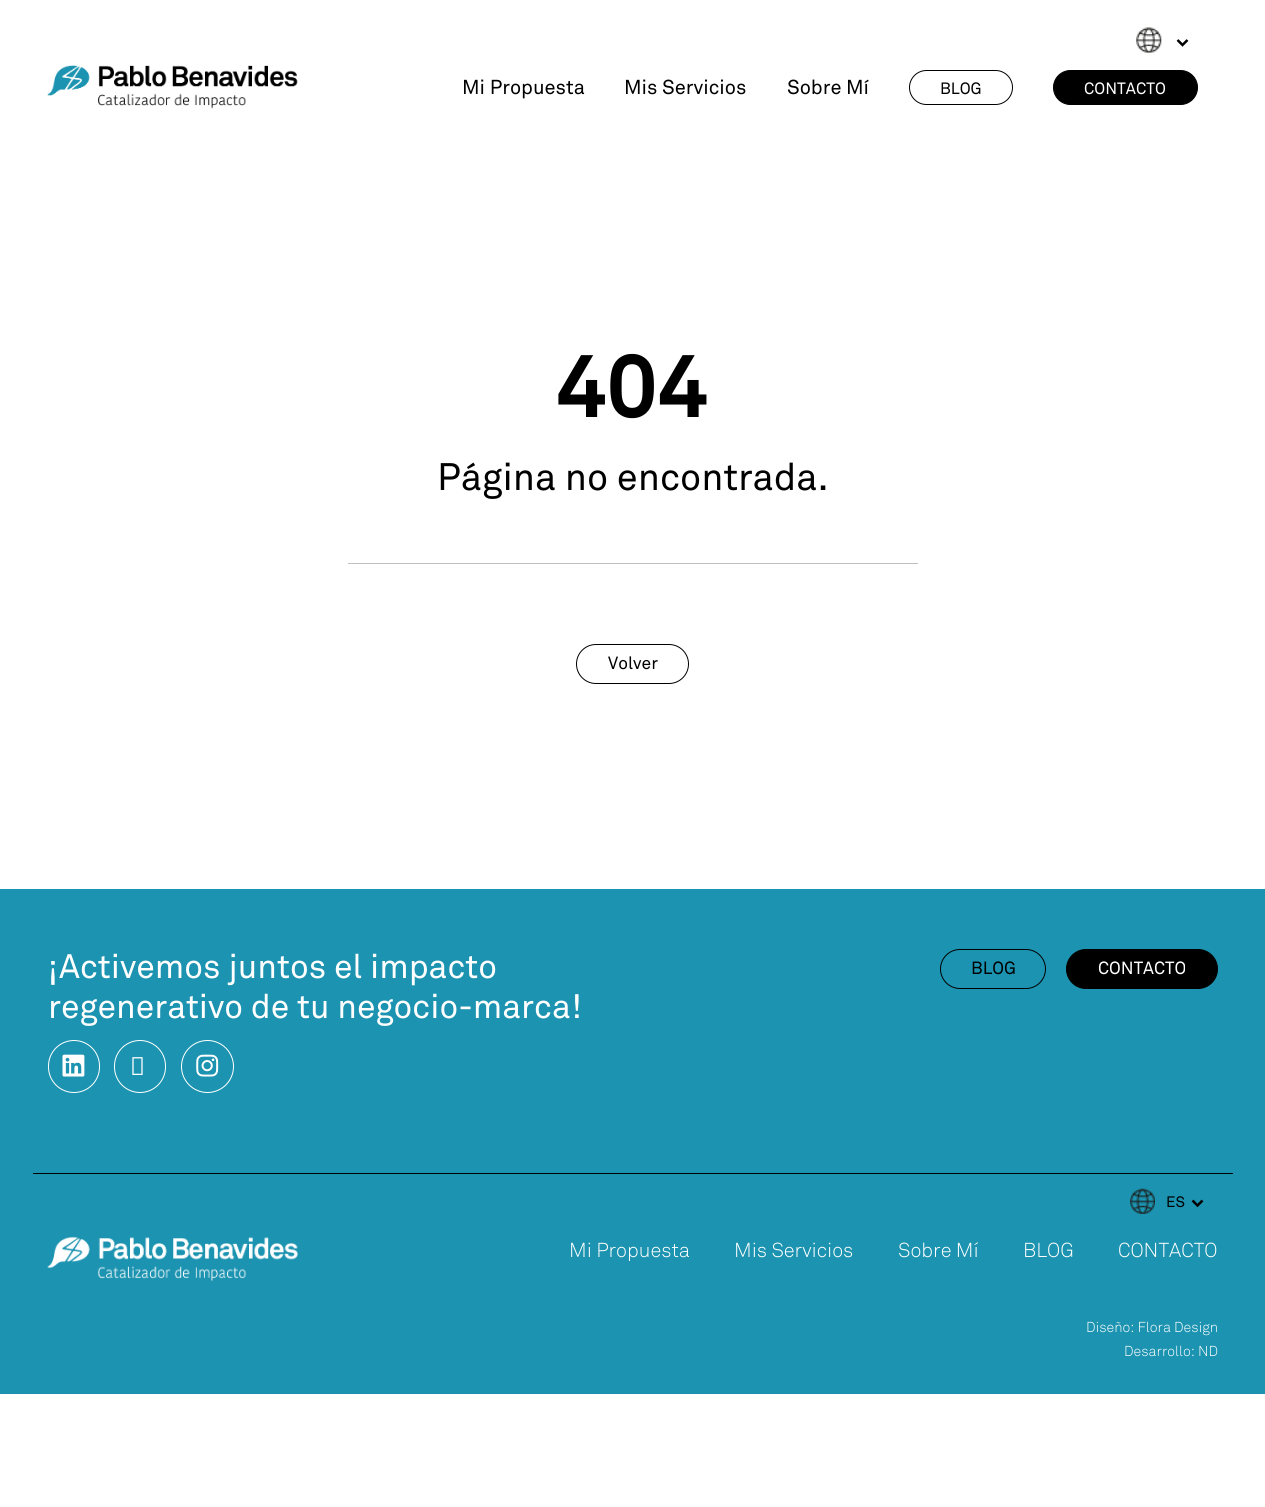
import math
import cairo

surface = cairo.ImageSurface(cairo.FORMAT_RGB24, 1265, 1507)
ctx = cairo.Context(surface)
options = cairo.FontOptions()
options.set_hint_metrics(cairo.HINT_METRICS_OFF)
options.set_hint_style(cairo.HINT_STYLE_NONE)
ctx.set_font_options(options)
ctx.set_miter_limit(4)


def round_rect(x, y, w, h, r):
    ctx.new_sub_path()
    for i, (u, v) in enumerate([(x + w - r, y + h - r), (x + r, y + h - r), (x + r, y + r), (x + w - r, y + r)]):
        ctx.arc(u, v, r, i * math.pi / 2, (i + 1) * math.pi / 2)
    ctx.close_path()


def picture(path, x, y, w, h):
    ctx.save()
    ctx.set_source_surface(cairo.ImageSurface.create_from_png(path), x, y)
    ctx.rectangle(x, y, w, h)
    ctx.fill()
    ctx.restore()


ctx.set_source_rgb(1, 1, 1)
ctx.paint()
picture("img1.png", 47, 65, 251, 44)
picture("img2.png", 1136, 27, 26, 26)
ctx.new_path()
ctx.move_to(1177.5, 40)
ctx.line_to(1182.5, 45)
ctx.line_to(1187.5, 40)
ctx.set_source_rgb(0, 0, 0)
ctx.set_line_width(2.5)
ctx.stroke()
ctx.select_font_face("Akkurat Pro")
ctx.set_font_size(20)
ctx.move_to(462, 94)
ctx.show_text("Mi Propuesta")
ctx.move_to(624, 94)
ctx.show_text("Mis Servicios")
ctx.move_to(787, 94)
ctx.show_text("Sobre Mí")
round_rect(909.5, 70.5, 103, 34, 17)
ctx.set_line_width(1)
ctx.stroke()
ctx.set_font_size(16.25)
ctx.move_to(940, 94)
ctx.show_text("BLOG")
round_rect(1053.5, 70.5, 144, 34, 17)
ctx.fill_preserve()
ctx.stroke()
ctx.set_source_rgb(1, 1, 1)
ctx.move_to(1084, 94)
ctx.show_text("CONTACTO")
ctx.select_font_face("Akkurat Pro", cairo.FONT_SLANT_NORMAL, cairo.FONT_WEIGHT_BOLD)
ctx.set_font_size(89)
ctx.set_source_rgb(0, 0, 0)
ctx.move_to(556, 417)
ctx.show_text("404")
ctx.select_font_face("Akkurat Pro")
ctx.set_font_size(37.9)
ctx.move_to(437, 490)
ctx.show_text("Página no encontrada.")
ctx.set_source_rgb(0.749, 0.749, 0.749)
ctx.rectangle(348, 563, 570, 1)
ctx.fill()
round_rect(576.5, 644.5, 112, 39, 19.5)
ctx.set_source_rgb(0, 0, 0)
ctx.stroke()
ctx.set_font_size(17.5)
ctx.move_to(608, 669)
ctx.show_text("Volver")
ctx.set_source_rgb(0.11, 0.576, 0.69)
ctx.rectangle(0, 889, 1265, 505)
ctx.fill()
ctx.set_font_size(33.6)
ctx.set_source_rgb(1, 1, 1)
ctx.move_to(48, 978)
ctx.show_text("¡Activemos juntos el impacto")
ctx.move_to(48, 1018)
ctx.show_text("regenerativo de tu negocio-marca!")
round_rect(48.5, 1040.5, 51, 52, 25.5)
ctx.stroke()
picture("img3.png", 62, 1054, 23, 23)
round_rect(114.5, 1040.5, 51, 52, 25.5)
ctx.stroke()
picture("img4.png", 132, 1057, 11, 18)
ctx.arc(207.5, 1066.5, 26, 0, 2 * math.pi)
ctx.stroke()
picture("img5.png", 196, 1054, 23, 23)
round_rect(940.5, 949.5, 105, 39, 19.5)
ctx.set_source_rgb(0, 0, 0)
ctx.stroke()
ctx.set_font_size(17.5)
ctx.move_to(971, 974)
ctx.show_text("BLOG")
round_rect(1066.5, 949.5, 151, 39, 19.5)
ctx.fill_preserve()
ctx.stroke()
ctx.set_source_rgb(1, 1, 1)
ctx.move_to(1098, 974)
ctx.show_text("CONTACTO")
ctx.set_source_rgb(0, 0, 0)
ctx.rectangle(33, 1173, 1200, 1)
ctx.fill()
picture("img6.png", 47, 1236, 251, 46)
picture("img7.png", 1130, 1188, 25, 26)
ctx.new_path()
ctx.move_to(1192.5, 1200.5)
ctx.line_to(1197.5, 1205.5)
ctx.line_to(1202.5, 1200.5)
ctx.set_line_width(2.5)
ctx.stroke()
ctx.set_font_size(15)
ctx.move_to(1166, 1207)
ctx.show_text("ES")
ctx.select_font_face("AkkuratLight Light")
ctx.set_font_size(20)
ctx.set_source_rgb(1, 1, 1)
ctx.move_to(569, 1257)
ctx.show_text("Mi Propuesta")
ctx.move_to(734, 1257)
ctx.show_text("Mis Servicios")
ctx.move_to(898, 1257)
ctx.show_text("Sobre Mí")
ctx.move_to(1023, 1257)
ctx.show_text("BLOG")
ctx.move_to(1118, 1257)
ctx.show_text("CONTACTO")
ctx.set_font_size(14.25)
ctx.move_to(1086, 1332)
ctx.show_text("Diseño: Flora Design")
ctx.move_to(1124, 1356)
ctx.show_text("Desarrollo: ND")
surface.write_to_png("page.png")
